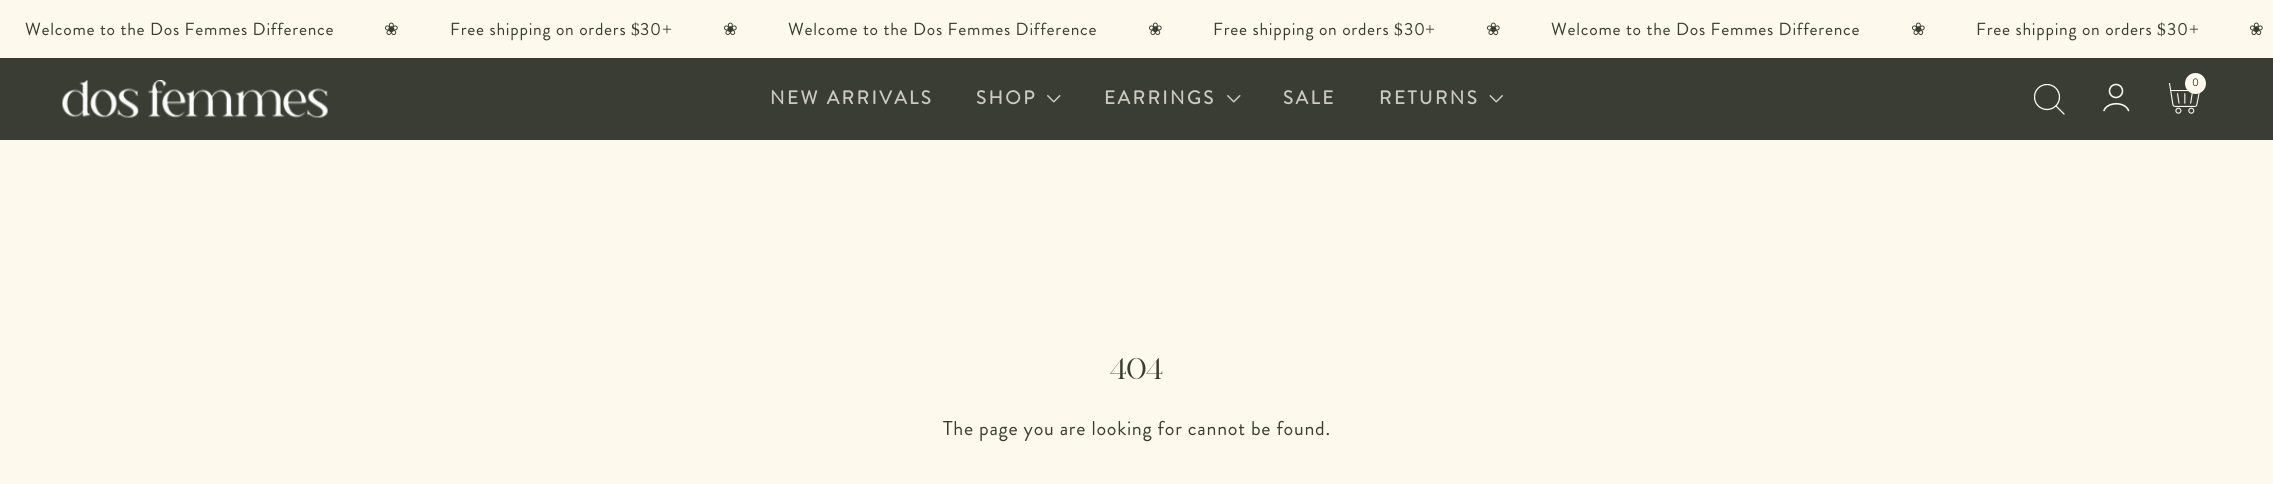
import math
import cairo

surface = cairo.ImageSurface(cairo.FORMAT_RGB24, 2273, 484)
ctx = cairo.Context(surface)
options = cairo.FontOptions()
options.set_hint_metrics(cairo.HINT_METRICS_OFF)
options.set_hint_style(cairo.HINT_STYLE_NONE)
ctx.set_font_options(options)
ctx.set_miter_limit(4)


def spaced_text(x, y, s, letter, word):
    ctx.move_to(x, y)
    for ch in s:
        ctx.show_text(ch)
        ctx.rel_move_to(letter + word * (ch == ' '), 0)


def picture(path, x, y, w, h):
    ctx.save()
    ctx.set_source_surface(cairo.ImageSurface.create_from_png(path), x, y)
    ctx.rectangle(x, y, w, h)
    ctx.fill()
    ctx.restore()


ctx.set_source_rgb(0.992, 0.973, 0.925)
ctx.paint()
ctx.select_font_face("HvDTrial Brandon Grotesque")
ctx.set_font_size(17.5)
ctx.set_source_rgb(0.224, 0.239, 0.2)
spaced_text(25, 35, "Welcome to the Dos Femmes Difference", 0.75, 0)
ctx.select_font_face("DejaVu Sans")
spaced_text(384, 35, "❀", 0.75, 0)
ctx.select_font_face("HvDTrial Brandon Grotesque")
spaced_text(450, 35, "Free shipping on orders", 0.75, 0)
ctx.select_font_face("Liberation Serif")
spaced_text(631, 35, "$", 0.75, 0)
ctx.select_font_face("HvDTrial Brandon Grotesque")
spaced_text(640, 35, "30", 0.75, 0)
ctx.select_font_face("Liberation Serif")
spaced_text(662, 35, "+", 0.75, 0)
ctx.select_font_face("DejaVu Sans")
spaced_text(723, 35, "❀", 0.75, 0)
ctx.select_font_face("HvDTrial Brandon Grotesque")
spaced_text(788, 35, "Welcome to the Dos Femmes Difference", 0.75, 0)
ctx.select_font_face("DejaVu Sans")
spaced_text(1148, 35, "❀", 0.75, 0)
ctx.select_font_face("HvDTrial Brandon Grotesque")
spaced_text(1213, 35, "Free shipping on orders", 0.75, 0)
ctx.select_font_face("Liberation Serif")
spaced_text(1394, 35, "$", 0.75, 0)
ctx.select_font_face("HvDTrial Brandon Grotesque")
spaced_text(1404, 35, "30", 0.75, 0)
ctx.select_font_face("Liberation Serif")
spaced_text(1425, 35, "+", 0.75, 0)
ctx.select_font_face("DejaVu Sans")
spaced_text(1486, 35, "❀", 0.75, 0)
ctx.select_font_face("HvDTrial Brandon Grotesque")
spaced_text(1551, 35, "Welcome to the Dos Femmes Difference", 0.75, 0)
ctx.select_font_face("DejaVu Sans")
spaced_text(1911, 35, "❀", 0.75, 0)
ctx.select_font_face("HvDTrial Brandon Grotesque")
spaced_text(1976, 35, "Free shipping on orders", 0.75, 0)
ctx.select_font_face("Liberation Serif")
spaced_text(2157, 35, "$", 0.75, 0)
ctx.select_font_face("HvDTrial Brandon Grotesque")
spaced_text(2167, 35, "30", 0.75, 0)
ctx.select_font_face("Liberation Serif")
spaced_text(2189, 35, "+", 0.75, 0)
ctx.select_font_face("DejaVu Sans")
spaced_text(2249, 35, "❀", 0.75, 0)
ctx.rectangle(0, 58, 2273, 82)
ctx.fill()
picture("img1.png", 62, 80, 266, 38)
ctx.select_font_face("HvDTrial Brandon Grotesque", cairo.FONT_SLANT_NORMAL, cairo.FONT_WEIGHT_BOLD)
ctx.set_font_size(18.75)
ctx.set_source_rgb(0.8, 0.788, 0.745)
spaced_text(770, 104, "NEW ARRIVALS", 2.5, 0)
spaced_text(976, 104, "SHOP", 2.5, 0)
picture("img2.png", 1047, 95, 14, 8)
spaced_text(1104, 104, "EARRINGS", 2.5, 0)
picture("img2.png", 1227, 95, 14, 8)
spaced_text(1283, 104, "SALE", 2.5, 0)
spaced_text(1379, 104, "RETURNS", 2.5, 0)
picture("img3.png", 1489, 95, 14, 8)
ctx.save()
ctx.rectangle(2034, 84, 31, 31)
ctx.clip()
ctx.arc(2047, 97, 12.5, 0, 2 * math.pi)
ctx.set_source_rgb(0.992, 0.973, 0.925)
ctx.set_line_width(1.3)
ctx.stroke()
ctx.restore()
ctx.new_path()
ctx.move_to(2056, 106)
ctx.line_to(2064, 114)
ctx.set_source_rgb(0.992, 0.973, 0.925)
ctx.set_line_width(1.3)
ctx.set_line_cap(cairo.LINE_CAP_ROUND)
ctx.stroke()
ctx.new_path()
ctx.move_to(2128.5, 110.5)
ctx.curve_to(2125, 101.5, 2107.5, 101.5, 2104, 110.5)
ctx.set_line_width(1.6)
ctx.stroke()
ctx.arc(2116, 91, 6.5, 0, 2 * math.pi)
ctx.set_line_cap(cairo.LINE_CAP_BUTT)
ctx.stroke()
picture("img4.png", 2169, 83, 31, 31)
ctx.arc(2195.5, 83.5, 10.5, 0, 2 * math.pi)
ctx.fill()
ctx.select_font_face("HvDTrial Brandon Grotesque")
ctx.set_font_size(11)
ctx.set_source_rgb(0.224, 0.239, 0.2)
spaced_text(2192, 86, "0", 0.75, 0)
ctx.select_font_face("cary")
ctx.set_font_size(30)
spaced_text(1110, 379, "404", 0.75, 0)
ctx.select_font_face("HvDTrial Brandon Grotesque")
ctx.set_font_size(20)
spaced_text(943, 435, "The page you are looking for cannot be found.", 0.75, 0)
surface.write_to_png("page.png")
